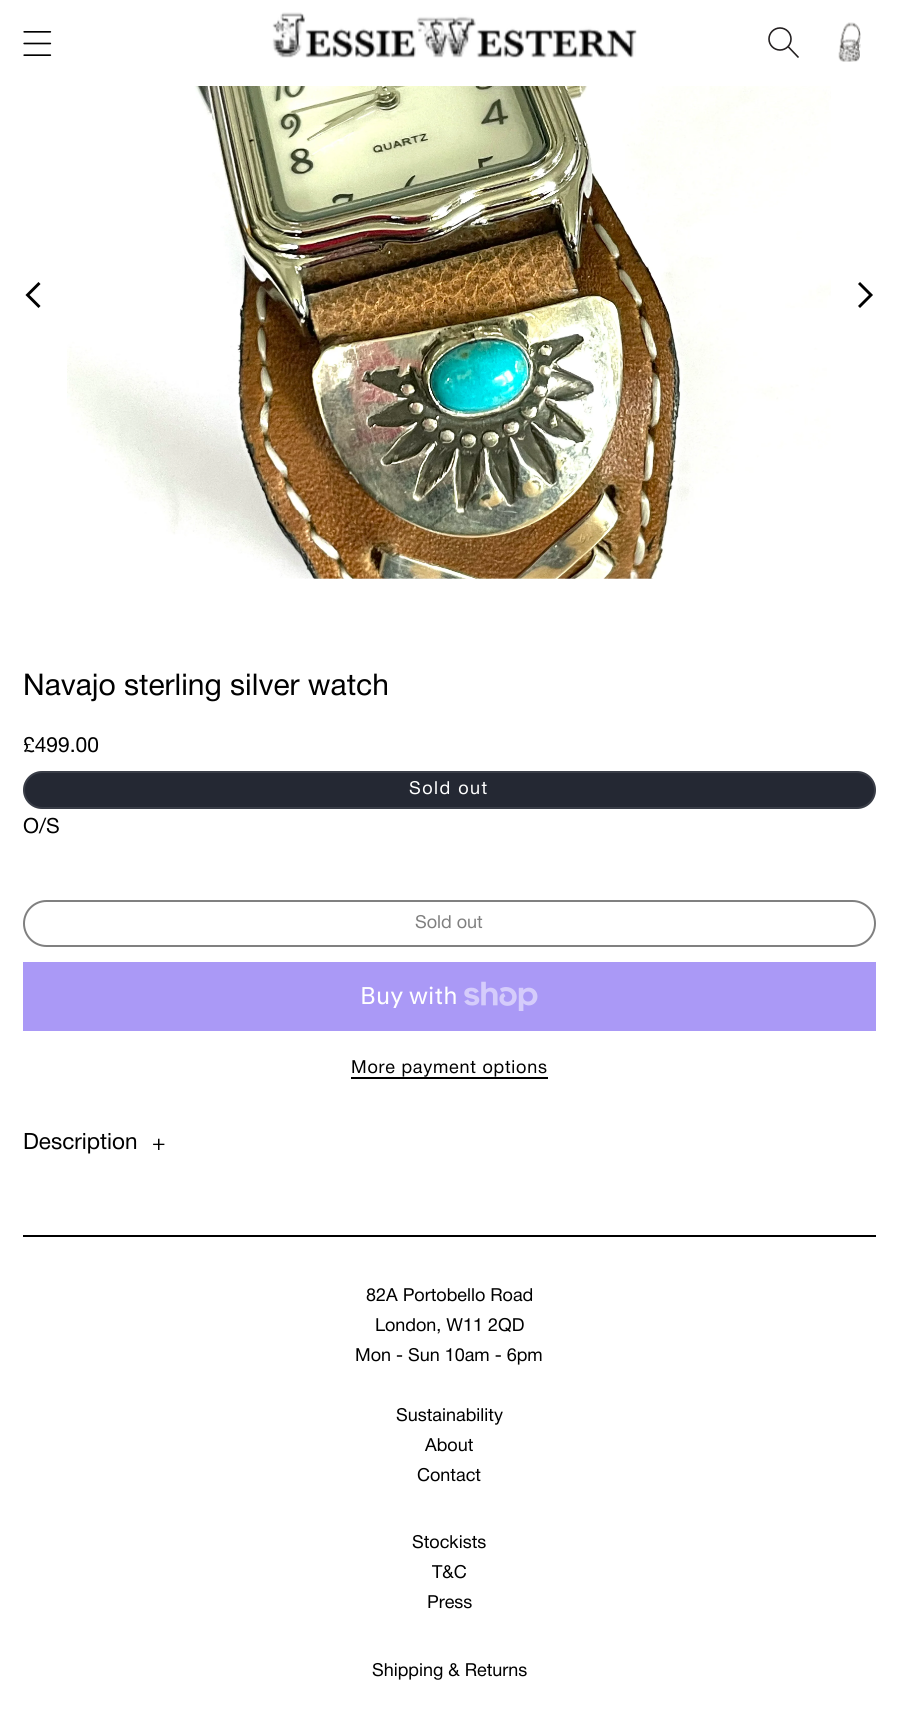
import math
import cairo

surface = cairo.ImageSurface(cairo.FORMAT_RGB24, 898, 1721)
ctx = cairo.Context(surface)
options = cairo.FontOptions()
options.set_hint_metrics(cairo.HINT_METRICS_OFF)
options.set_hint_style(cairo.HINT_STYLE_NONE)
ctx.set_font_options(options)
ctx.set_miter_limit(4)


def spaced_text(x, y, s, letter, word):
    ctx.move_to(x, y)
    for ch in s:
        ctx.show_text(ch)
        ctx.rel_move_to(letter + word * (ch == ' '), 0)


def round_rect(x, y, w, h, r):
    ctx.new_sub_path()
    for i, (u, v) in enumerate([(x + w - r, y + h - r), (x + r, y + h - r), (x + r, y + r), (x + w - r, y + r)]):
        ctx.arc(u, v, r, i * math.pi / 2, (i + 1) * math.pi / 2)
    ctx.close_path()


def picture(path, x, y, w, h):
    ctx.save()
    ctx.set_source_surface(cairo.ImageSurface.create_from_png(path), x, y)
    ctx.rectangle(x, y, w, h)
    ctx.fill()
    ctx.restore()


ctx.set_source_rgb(1, 1, 1)
ctx.paint()
picture("img1.png", 23, 31, 29, 25)
picture("img2.png", 272, 12, 365, 46)
ctx.arc(780, 39, 11, 0, 2 * math.pi)
ctx.set_source_rgb(0.137, 0.122, 0.125)
ctx.set_line_width(1.6)
ctx.stroke()
ctx.new_path()
ctx.move_to(798.5, 57.5)
ctx.line_to(788, 46.5)
ctx.stroke()
picture("img3.png", 838, 22, 23, 40)
ctx.new_path()
ctx.move_to(39.5, 283)
ctx.line_to(27.5, 295)
ctx.line_to(39.5, 307)
ctx.set_source_rgb(0, 0, 0)
ctx.set_line_width(2.9)
ctx.stroke()
picture("img4.png", 67, 86, 764, 493)
ctx.new_path()
ctx.move_to(859, 307)
ctx.line_to(871, 295)
ctx.line_to(859, 283)
ctx.stroke()
ctx.select_font_face("Helvetica Neue")
ctx.set_font_size(30)
ctx.move_to(23, 695)
ctx.show_text("Navajo sterling silver watch")
ctx.set_font_size(21)
ctx.move_to(23, 752)
ctx.show_text("£499.00")
ctx.set_source_rgb(0.141, 0.157, 0.2)
round_rect(23, 771, 853, 38, 19)
ctx.fill()
round_rect(24, 772, 851, 36, 18)
ctx.set_source_rgba(1, 1, 1, 0.1)
ctx.set_line_width(2)
ctx.stroke()
ctx.set_font_size(18)
ctx.set_source_rgb(1, 1, 1)
spaced_text(409, 794, "Sold out", 1.5, 0)
ctx.set_font_size(21)
ctx.set_source_rgb(0, 0, 0)
ctx.move_to(23, 833)
ctx.show_text("O/S")
round_rect(24, 901, 851, 45, 22.5)
ctx.set_source_rgb(0.502, 0.502, 0.502)
ctx.stroke()
ctx.set_font_size(18)
ctx.move_to(415, 928)
ctx.show_text("Sold out")
ctx.set_source_rgb(0.667, 0.6, 0.961)
ctx.rectangle(23, 962, 853, 69)
ctx.fill()
ctx.select_font_face("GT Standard")
ctx.set_font_size(24)
ctx.set_source_rgb(1, 1, 1)
ctx.move_to(360, 1004)
ctx.show_text("Buy with")
picture("img5.png", 464, 981, 74, 30)
ctx.select_font_face("Helvetica Neue")
ctx.set_font_size(18)
ctx.set_source_rgb(0, 0, 0)
spaced_text(351, 1073, "More payment options", 0.75, 0)
ctx.rectangle(351, 1077, 197, 2)
ctx.fill()
ctx.set_font_size(22.5)
ctx.move_to(23, 1149)
ctx.show_text("Description")
ctx.move_to(152, 1150)
ctx.show_text("+")
ctx.rectangle(23, 1235, 853, 2)
ctx.fill()
ctx.set_font_size(18)
ctx.move_to(366, 1301)
ctx.show_text("82A Portobello Road")
ctx.move_to(375, 1331)
ctx.show_text("London, W11 2QD")
ctx.move_to(355, 1361)
ctx.show_text("Mon - Sun 10am - 6pm")
ctx.move_to(396, 1421)
ctx.show_text("Sustainability")
ctx.move_to(425, 1451)
ctx.show_text("About")
ctx.move_to(417, 1481)
ctx.show_text("Contact")
ctx.move_to(412, 1548)
ctx.show_text("Stockists")
ctx.move_to(432, 1578)
ctx.show_text("T&C")
ctx.move_to(427, 1608)
ctx.show_text("Press")
ctx.move_to(372, 1676)
ctx.show_text("Shipping & Returns")
surface.write_to_png("page.png")
